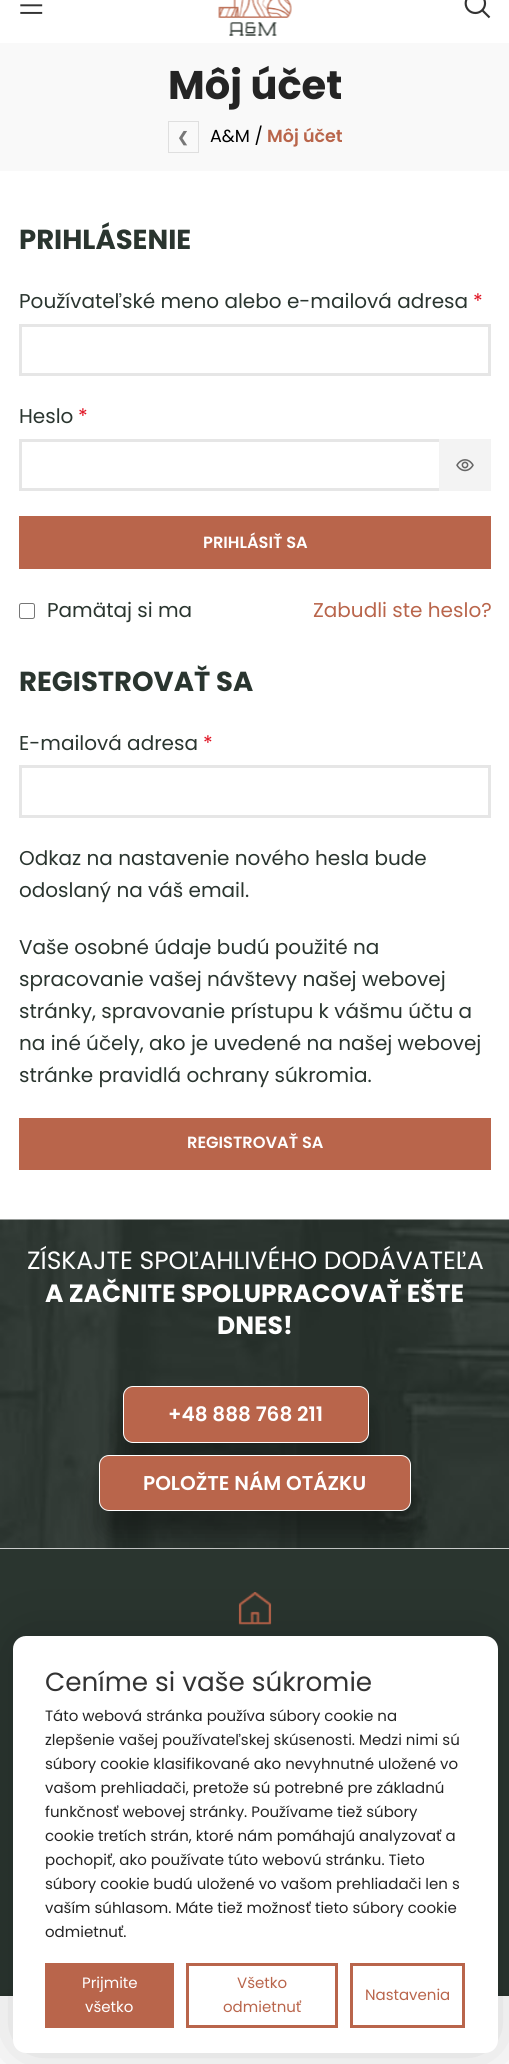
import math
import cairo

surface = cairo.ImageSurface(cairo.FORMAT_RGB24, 509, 2064)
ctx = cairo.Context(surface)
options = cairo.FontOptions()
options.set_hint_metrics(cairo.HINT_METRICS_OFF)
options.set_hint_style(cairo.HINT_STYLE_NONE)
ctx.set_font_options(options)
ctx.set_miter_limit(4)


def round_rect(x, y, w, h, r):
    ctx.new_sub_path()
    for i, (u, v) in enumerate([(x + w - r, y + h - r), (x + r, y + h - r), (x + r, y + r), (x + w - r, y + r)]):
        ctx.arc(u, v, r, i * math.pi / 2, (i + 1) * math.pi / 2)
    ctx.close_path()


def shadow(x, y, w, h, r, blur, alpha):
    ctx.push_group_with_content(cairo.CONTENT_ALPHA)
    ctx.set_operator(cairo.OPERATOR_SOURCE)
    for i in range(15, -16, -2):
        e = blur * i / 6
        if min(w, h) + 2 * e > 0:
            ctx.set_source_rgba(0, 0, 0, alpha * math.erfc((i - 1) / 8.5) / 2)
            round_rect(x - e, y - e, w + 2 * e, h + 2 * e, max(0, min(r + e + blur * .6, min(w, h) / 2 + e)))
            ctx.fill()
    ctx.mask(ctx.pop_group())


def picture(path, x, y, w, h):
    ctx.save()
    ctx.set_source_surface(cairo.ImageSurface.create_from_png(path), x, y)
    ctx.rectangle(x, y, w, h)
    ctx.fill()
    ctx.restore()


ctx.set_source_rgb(1, 1, 1)
ctx.paint()
picture("img1.png", 20, 4, 23, 10)
picture("img2.png", 218, 0, 74, 36)
picture("img3.png", 464, 0, 27, 19)
ctx.set_source_rgb(0.973, 0.973, 0.973)
ctx.rectangle(0, 43, 509, 128)
ctx.fill()
ctx.select_font_face("Poppins", cairo.FONT_SLANT_NORMAL, cairo.FONT_WEIGHT_BOLD)
ctx.set_font_size(40)
ctx.set_source_rgb(0.141, 0.141, 0.141)
ctx.move_to(168, 99)
ctx.show_text("Môj účet")
ctx.rectangle(168.5, 121.5, 30, 31)
ctx.set_source_rgb(0.875, 0.875, 0.875)
ctx.set_line_width(1)
ctx.stroke()
ctx.select_font_face("DejaVu Sans", cairo.FONT_SLANT_NORMAL, cairo.FONT_WEIGHT_BOLD)
ctx.set_font_size(14)
ctx.set_source_rgb(0.467, 0.467, 0.467)
ctx.move_to(177, 142)
ctx.show_text("❮")
ctx.select_font_face("Poppins")
ctx.set_font_size(17.5)
ctx.set_source_rgb(0, 0, 0)
ctx.move_to(210, 142)
ctx.show_text("A&M /")
ctx.select_font_face("Poppins SemiBold")
ctx.set_source_rgb(0.725, 0.396, 0.294)
ctx.move_to(267, 142)
ctx.show_text("Môj účet")
ctx.select_font_face("Poppins", cairo.FONT_SLANT_NORMAL, cairo.FONT_WEIGHT_BOLD)
ctx.set_font_size(27.5)
ctx.set_source_rgb(0.165, 0.208, 0.184)
ctx.move_to(19, 249)
ctx.show_text("PRIHLÁSENIE")
ctx.select_font_face("Poppins")
ctx.set_font_size(20)
ctx.move_to(19, 308)
ctx.show_text("Používateľské meno alebo e-mailová adresa")
ctx.set_source_rgb(0.878, 0.063, 0.125)
ctx.move_to(473, 308)
ctx.show_text("*")
ctx.rectangle(20.5, 325.5, 469, 49)
ctx.set_source_rgb(0.902, 0.902, 0.902)
ctx.set_line_width(3)
ctx.stroke()
ctx.set_source_rgb(0.165, 0.208, 0.184)
ctx.move_to(19, 423)
ctx.show_text("Heslo")
ctx.set_source_rgb(0.878, 0.063, 0.125)
ctx.move_to(78, 423)
ctx.show_text("*")
ctx.rectangle(20.5, 440.5, 469, 49)
ctx.set_source_rgb(0.902, 0.902, 0.902)
ctx.stroke()
ctx.set_source_rgb(0.953, 0.953, 0.953)
ctx.rectangle(439, 439, 52, 52)
ctx.fill()
picture("img4.png", 456, 459, 18, 13)
ctx.set_source_rgb(0.725, 0.396, 0.294)
ctx.rectangle(19, 516, 472, 53)
ctx.fill()
ctx.select_font_face("Poppins SemiBold")
ctx.set_font_size(16.25)
ctx.set_source_rgb(1, 1, 1)
ctx.move_to(203, 548)
ctx.show_text("PRIHLÁSIŤ SA")
round_rect(19.5, 603.5, 15, 15, 2)
ctx.set_source_rgb(0.463, 0.463, 0.463)
ctx.set_line_width(1)
ctx.stroke()
ctx.select_font_face("Poppins")
ctx.set_font_size(20)
ctx.set_source_rgb(0.165, 0.208, 0.184)
ctx.move_to(47, 617)
ctx.show_text("Pamätaj si ma")
ctx.set_source_rgb(0.725, 0.396, 0.294)
ctx.move_to(313, 617)
ctx.show_text("Zabudli ste heslo?")
ctx.select_font_face("Poppins", cairo.FONT_SLANT_NORMAL, cairo.FONT_WEIGHT_BOLD)
ctx.set_font_size(27.5)
ctx.set_source_rgb(0.165, 0.208, 0.184)
ctx.move_to(19, 691)
ctx.show_text("REGISTROVAŤ SA")
ctx.select_font_face("Poppins")
ctx.set_font_size(20)
ctx.move_to(19, 750)
ctx.show_text("E-mailová adresa")
ctx.set_source_rgb(0.878, 0.063, 0.125)
ctx.move_to(203, 750)
ctx.show_text("*")
ctx.rectangle(20.5, 766.5, 469, 50)
ctx.set_source_rgb(0.902, 0.902, 0.902)
ctx.set_line_width(3)
ctx.stroke()
ctx.set_source_rgb(0.165, 0.208, 0.184)
ctx.move_to(19, 865)
ctx.show_text("Odkaz na nastavenie nového hesla bude")
ctx.move_to(19, 897)
ctx.show_text("odoslaný na váš email.")
ctx.move_to(19, 954)
ctx.show_text("Vaše osobné údaje budú použité na")
ctx.move_to(19, 986)
ctx.show_text("spracovanie vašej návštevy našej webovej")
ctx.move_to(19, 1018)
ctx.show_text("stránky, spravovanie prístupu k vášmu účtu a")
ctx.move_to(19, 1050)
ctx.show_text("na iné účely, ako je uvedené na našej webovej")
ctx.move_to(19, 1082)
ctx.show_text("stránke pravidlá ochrany súkromia.")
ctx.set_source_rgb(0.725, 0.396, 0.294)
ctx.rectangle(19, 1118, 472, 52)
ctx.fill()
ctx.select_font_face("Poppins SemiBold")
ctx.set_font_size(16.25)
ctx.set_source_rgb(1, 1, 1)
ctx.move_to(187, 1148)
ctx.show_text("REGISTROVAŤ SA")
picture("img5.png", 0, 1219, 509, 330)
ctx.select_font_face("Poppins")
ctx.set_font_size(25)
ctx.move_to(27, 1269)
ctx.show_text("ZÍSKAJTE SPOĽAHLIVÉHO DODÁVATEĽA")
ctx.select_font_face("Poppins", cairo.FONT_SLANT_NORMAL, cairo.FONT_WEIGHT_BOLD)
ctx.move_to(45, 1302)
ctx.show_text("A ZAČNITE SPOLUPRACOVAŤ EŠTE")
ctx.move_to(217, 1334)
ctx.show_text("DNES!")
ctx.set_source_rgb(0, 0, 0)
shadow(123, 1411, 246, 57, 10, 12.5, 0.3)
ctx.set_source_rgb(0.725, 0.396, 0.294)
round_rect(123.5, 1386.5, 245, 56, 9.5)
ctx.fill_preserve()
ctx.set_source_rgb(1, 1, 1)
ctx.set_line_width(1)
ctx.stroke()
ctx.select_font_face("Poppins SemiBold")
ctx.set_font_size(20)
ctx.move_to(168, 1421)
ctx.show_text("+48 888 768 211")
ctx.set_source_rgb(0.165, 0.208, 0.184)
ctx.rectangle(0, 1549, 509, 447)
ctx.fill()
ctx.save()
ctx.rectangle(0, 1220, 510, 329)
ctx.clip()
ctx.set_source_rgb(0, 0, 0)
shadow(99, 1480, 312, 56, 10, 12.5, 0.3)
ctx.restore()
ctx.set_source_rgb(0.725, 0.396, 0.294)
round_rect(99.5, 1455.5, 311, 55, 9.5)
ctx.fill_preserve()
ctx.set_source_rgb(1, 1, 1)
ctx.stroke()
ctx.move_to(143, 1490)
ctx.show_text("POLOŽTE NÁM OTÁZKU")
picture("img6.png", 238, 1592, 34, 33)
ctx.set_source_rgb(0, 0, 0)
shadow(0, 1996, 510, 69, 0, 5.5, 0.12)
ctx.set_source_rgb(1, 1, 1)
ctx.rectangle(0, 1996, 509, 68)
ctx.fill()
ctx.set_source_rgb(0, 0, 0)
shadow(13, 1636, 485, 417, 13, 31, 0.19)
ctx.set_source_rgb(1, 1, 1)
round_rect(13, 1636, 485, 417, 13)
ctx.fill()
ctx.select_font_face("Poppins")
ctx.set_font_size(26.25)
ctx.set_source_rgb(0.2, 0.2, 0.2)
ctx.move_to(45, 1691)
ctx.show_text("Ceníme si vaše súkromie")
ctx.set_font_size(15)
ctx.set_source_rgb(0.141, 0.141, 0.141)
ctx.move_to(45, 1721)
ctx.show_text("Táto webová stránka používa súbory cookie na")
ctx.move_to(45, 1745)
ctx.show_text("zlepšenie vašej používateľskej skúsenosti. Medzi nimi sú")
ctx.move_to(45, 1769)
ctx.show_text("súbory cookie klasifikované ako nevyhnutné uložené vo")
ctx.move_to(45, 1793)
ctx.show_text("vašom prehliadači, pretože sú potrebné pre základnú")
ctx.move_to(45, 1817)
ctx.show_text("funkčnosť webovej stránky. Používame tiež súbory")
ctx.move_to(45, 1841)
ctx.show_text("cookie tretích strán, ktoré nám pomáhajú analyzovať a")
ctx.move_to(45, 1865)
ctx.show_text("pochopiť, ako používate túto webovú stránku. Tieto")
ctx.move_to(45, 1889)
ctx.show_text("súbory cookie budú uložené vo vašom prehliadači len s")
ctx.move_to(45, 1913)
ctx.show_text("vaším súhlasom. Máte tiež možnosť tieto súbory cookie")
ctx.move_to(45, 1937)
ctx.show_text("odmietnuť.")
ctx.set_source_rgb(0.725, 0.396, 0.294)
ctx.rectangle(45, 1963, 129, 65)
ctx.fill()
ctx.set_source_rgb(1, 1, 1)
ctx.move_to(82, 1988)
ctx.show_text("Prijmite")
ctx.move_to(85, 2012)
ctx.show_text("všetko")
ctx.rectangle(187.5, 1964.5, 149, 62)
ctx.set_source_rgb(0.725, 0.396, 0.294)
ctx.set_line_width(3)
ctx.stroke()
ctx.move_to(237, 1988)
ctx.show_text("Všetko")
ctx.move_to(223, 2012)
ctx.show_text("odmietnuť")
ctx.rectangle(351.5, 1964.5, 112, 62)
ctx.stroke()
ctx.move_to(365, 2000)
ctx.show_text("Nastavenia")
surface.write_to_png("page.png")
